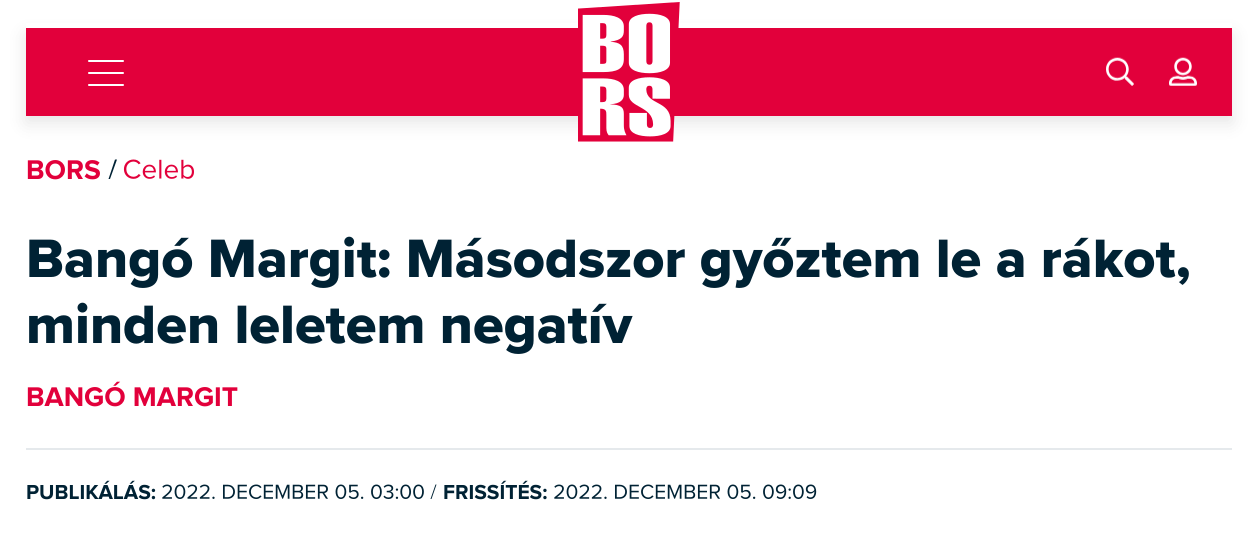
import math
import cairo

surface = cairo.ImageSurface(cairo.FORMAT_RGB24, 1257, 534)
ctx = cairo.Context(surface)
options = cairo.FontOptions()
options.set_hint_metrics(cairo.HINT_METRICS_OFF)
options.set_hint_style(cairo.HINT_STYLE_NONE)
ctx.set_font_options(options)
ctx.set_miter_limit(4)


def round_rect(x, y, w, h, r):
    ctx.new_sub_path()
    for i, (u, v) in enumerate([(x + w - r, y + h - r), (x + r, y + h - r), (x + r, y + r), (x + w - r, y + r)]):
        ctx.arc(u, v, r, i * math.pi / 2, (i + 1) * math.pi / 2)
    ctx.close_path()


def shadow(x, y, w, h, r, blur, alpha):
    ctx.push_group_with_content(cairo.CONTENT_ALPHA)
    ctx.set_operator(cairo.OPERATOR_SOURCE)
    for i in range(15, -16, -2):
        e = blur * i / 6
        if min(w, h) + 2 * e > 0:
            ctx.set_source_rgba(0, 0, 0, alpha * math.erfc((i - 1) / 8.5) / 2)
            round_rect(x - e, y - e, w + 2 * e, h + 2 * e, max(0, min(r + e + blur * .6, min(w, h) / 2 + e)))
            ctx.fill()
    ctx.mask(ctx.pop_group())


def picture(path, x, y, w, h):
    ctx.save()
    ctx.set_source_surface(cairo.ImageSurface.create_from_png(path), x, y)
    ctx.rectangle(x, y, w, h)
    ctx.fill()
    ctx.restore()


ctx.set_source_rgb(1, 1, 1)
ctx.paint()
ctx.set_source_rgb(0, 0, 0)
shadow(26, 35, 1206, 88, 0, 9, 0.1)
ctx.set_source_rgb(0.886, 0, 0.231)
ctx.rectangle(26, 28, 1206, 88)
ctx.fill()
ctx.set_source_rgb(1, 1, 1)
ctx.rectangle(26, 23, 1206, 5)
ctx.fill()
picture("img1.png", 578, 2, 102, 140)
round_rect(88, 72, 36, 2, 1)
ctx.fill()
round_rect(88, 60, 36, 2, 1)
ctx.fill()
round_rect(88, 84, 36, 2, 1)
ctx.fill()
picture("img2.png", 1106, 57, 28, 29)
picture("img3.png", 1169, 57, 28, 29)
ctx.select_font_face("Proxima Nova", cairo.FONT_SLANT_NORMAL, cairo.FONT_WEIGHT_BOLD)
ctx.set_font_size(28)
ctx.set_source_rgb(0.886, 0, 0.231)
ctx.move_to(26, 179)
ctx.show_text("BORS")
ctx.set_source_rgb(0, 0.133, 0.204)
ctx.new_path()
ctx.move_to(110, 179)
ctx.line_to(108.5, 179)
ctx.line_to(115, 159.5)
ctx.line_to(117, 159.5)
ctx.close_path()
ctx.fill()
picture("img4.png", 123, 159, 71, 20)
ctx.select_font_face("Proxima Nova ExtraBold")
ctx.set_font_size(56)
ctx.move_to(26, 277)
ctx.show_text("Bangó Margit: Másodszor győztem le a rákot,")
ctx.move_to(26, 343)
ctx.show_text("minden leletem negatív")
ctx.select_font_face("Proxima Nova", cairo.FONT_SLANT_NORMAL, cairo.FONT_WEIGHT_BOLD)
ctx.set_font_size(28)
ctx.set_source_rgb(0.886, 0, 0.231)
ctx.move_to(26, 406)
ctx.show_text("BANGÓ MARGIT")
ctx.set_source_rgb(0.898, 0.914, 0.922)
ctx.rectangle(26, 448, 1206, 2)
ctx.fill()
ctx.set_font_size(21)
ctx.set_source_rgb(0, 0.133, 0.204)
ctx.move_to(26, 499)
ctx.show_text("PUBLIKÁLÁS:")
picture("img5.png", 162, 484, 262, 15)
ctx.new_path()
ctx.move_to(431.5, 499)
ctx.line_to(430.5, 499)
ctx.line_to(435.5, 484.5)
ctx.line_to(436.5, 484.5)
ctx.close_path()
ctx.fill()
ctx.move_to(443, 499)
ctx.show_text("FRISSÍTÉS:")
picture("img6.png", 554, 484, 263, 15)
surface.write_to_png("page.png")
